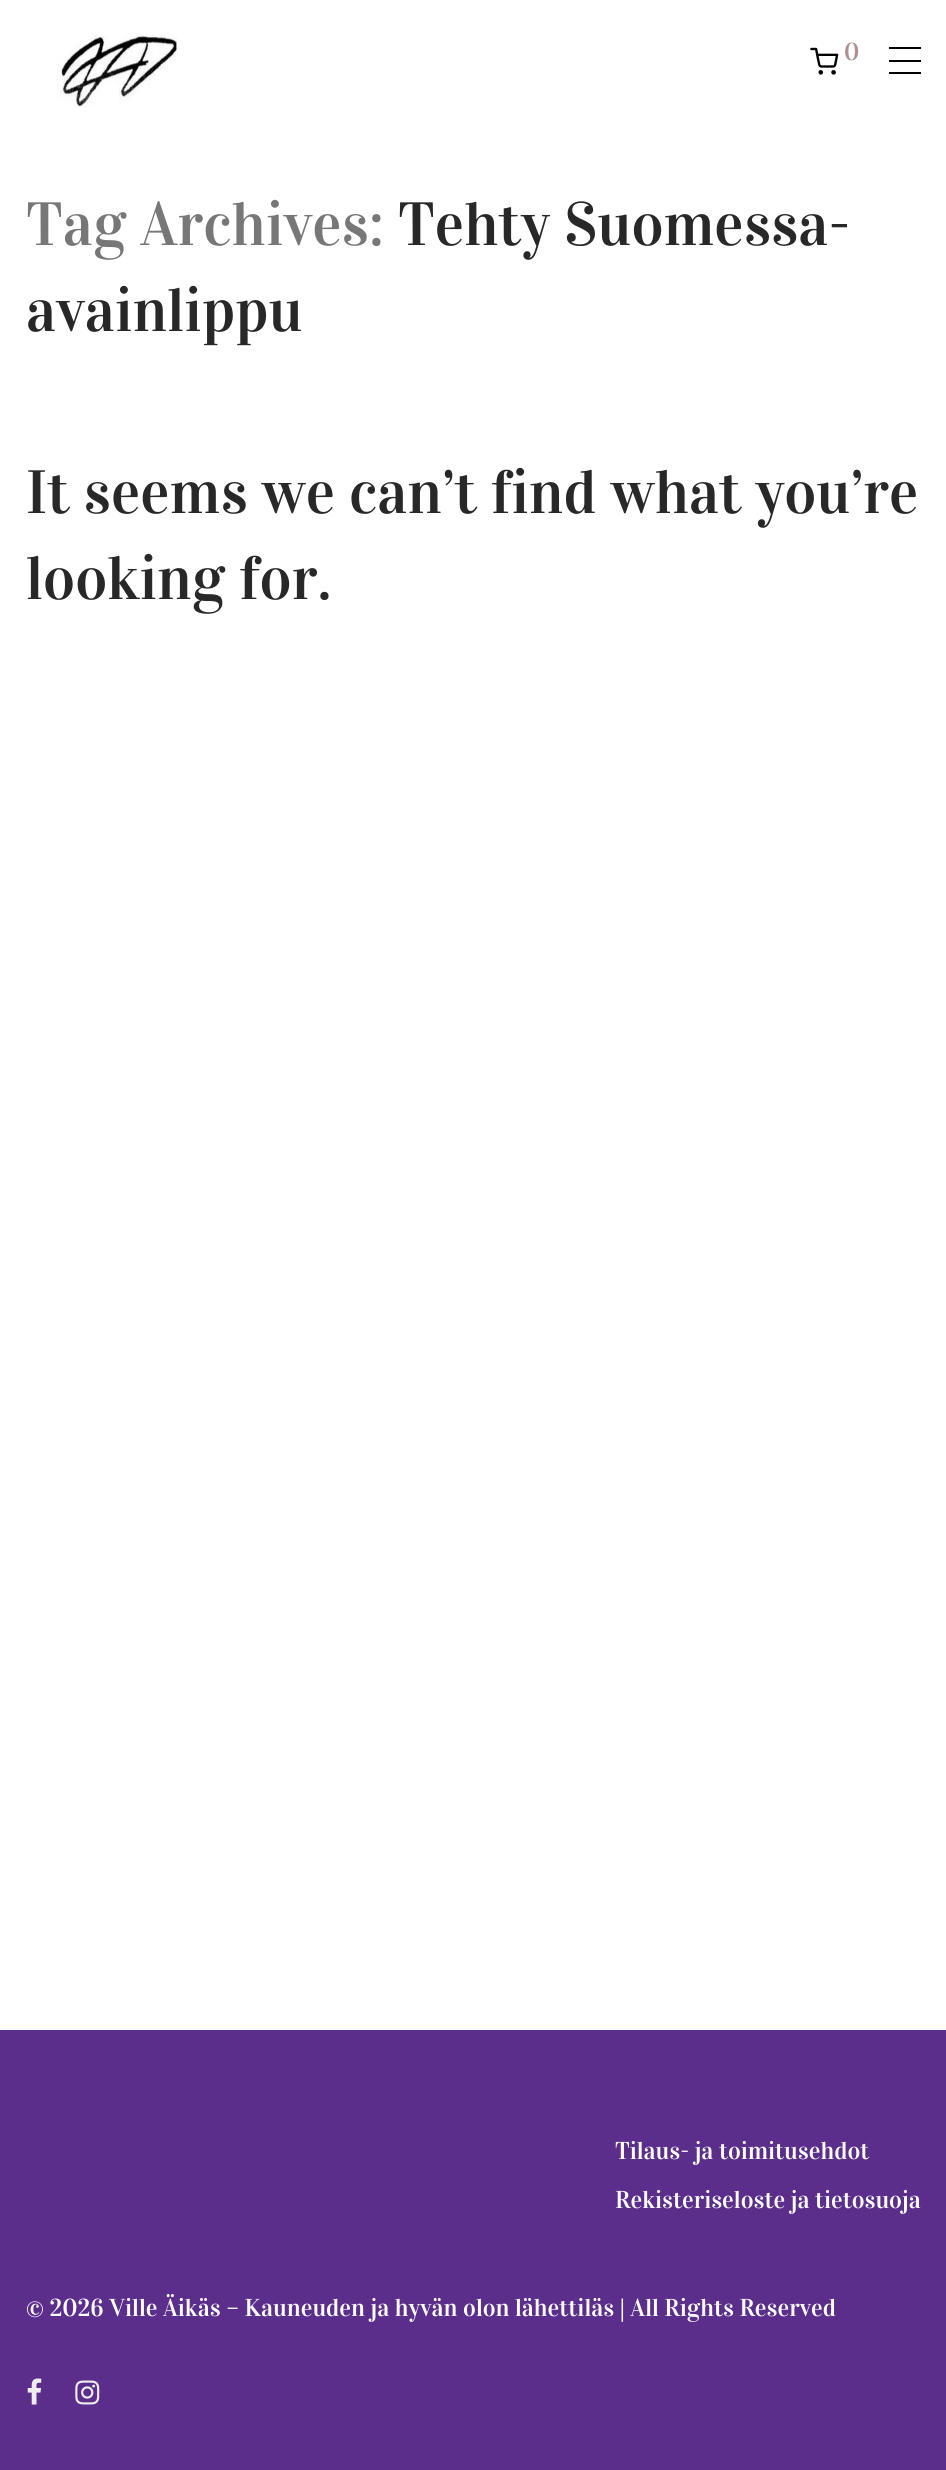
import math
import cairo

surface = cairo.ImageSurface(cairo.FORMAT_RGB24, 946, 2470)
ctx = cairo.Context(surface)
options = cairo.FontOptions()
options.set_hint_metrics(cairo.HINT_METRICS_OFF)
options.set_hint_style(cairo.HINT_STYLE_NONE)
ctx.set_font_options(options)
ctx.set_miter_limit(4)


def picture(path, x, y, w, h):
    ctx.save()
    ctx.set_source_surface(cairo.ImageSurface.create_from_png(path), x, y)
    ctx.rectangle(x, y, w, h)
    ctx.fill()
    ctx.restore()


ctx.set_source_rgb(1, 1, 1)
ctx.paint()
picture("img1.png", 57, 33, 121, 74)
picture("img2.png", 810, 47, 29, 28)
ctx.select_font_face("Vidaloka")
ctx.set_font_size(24.5)
ctx.set_source_rgb(0.678, 0.561, 0.561)
ctx.move_to(844, 60)
ctx.show_text("0")
ctx.set_source_rgb(0, 0, 0)
ctx.rectangle(889, 47, 32, 2)
ctx.fill()
ctx.rectangle(889, 60, 32, 2)
ctx.fill()
ctx.rectangle(889, 72, 32, 2)
ctx.fill()
ctx.set_font_size(61.25)
ctx.set_source_rgb(0.467, 0.467, 0.467)
ctx.move_to(26, 245)
ctx.show_text("Tag Archives:")
ctx.set_source_rgb(0.157, 0.157, 0.157)
ctx.move_to(398, 245)
ctx.show_text("Tehty Suomessa-")
ctx.move_to(26, 331)
ctx.show_text("avainlippu")
ctx.move_to(26, 513)
ctx.show_text("It seems we can’t find what you’re")
ctx.move_to(26, 599)
ctx.show_text("looking for.")
ctx.set_source_rgb(0.361, 0.18, 0.549)
ctx.rectangle(0, 2030, 946, 440)
ctx.fill()
ctx.set_font_size(24.5)
ctx.set_source_rgb(1, 1, 1)
ctx.move_to(615, 2159)
ctx.show_text("Tilaus- ja toimitusehdot")
ctx.move_to(615, 2208)
ctx.show_text("Rekisteriseloste ja tietosuoja")
ctx.move_to(26, 2316)
ctx.show_text("© 2026 Ville Äikäs – Kauneuden ja hyvän olon lähettiläs | All Rights Reserved")
picture("img3.png", 27, 2378, 15, 27)
picture("img4.png", 75, 2380, 25, 25)
surface.write_to_png("page.png")
